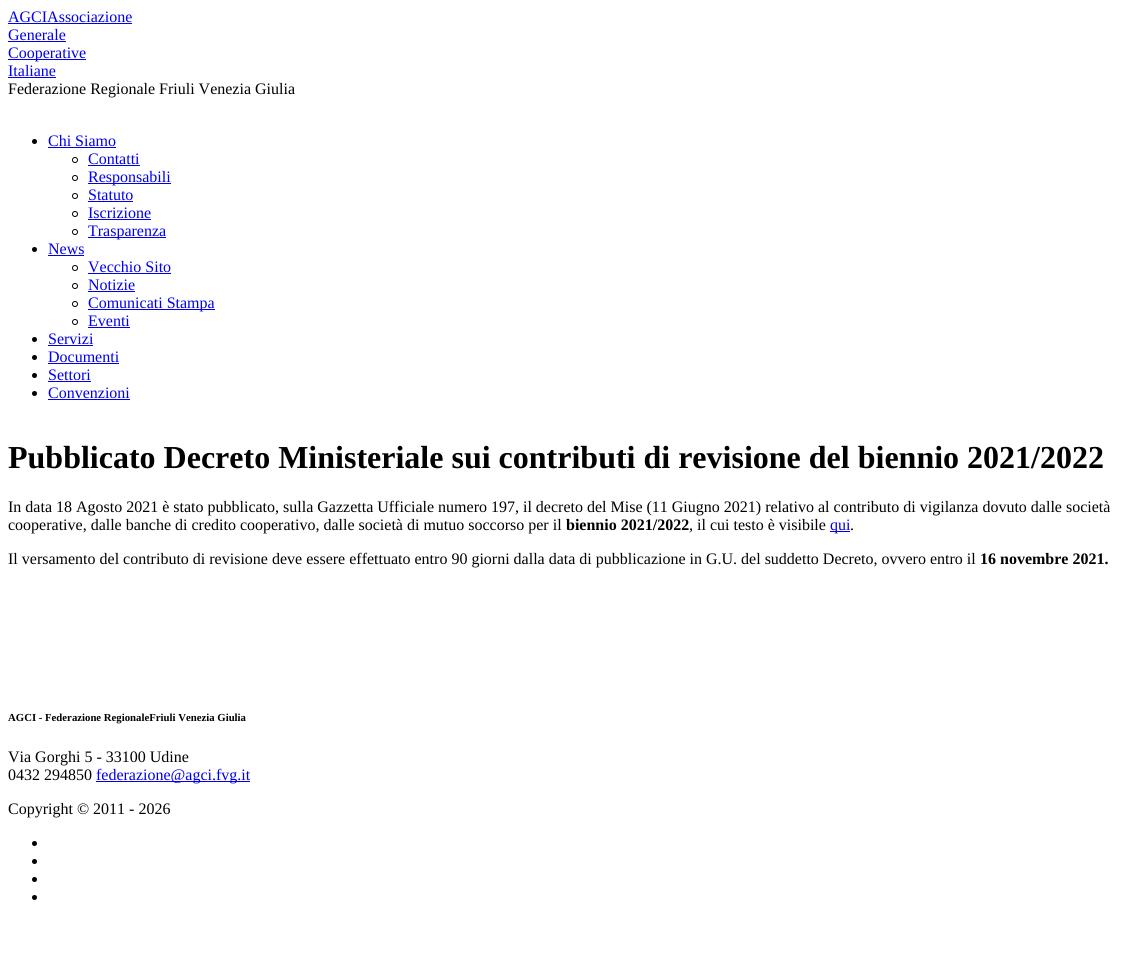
import math
import cairo

surface = cairo.ImageSurface(cairo.FORMAT_RGB24, 1124, 963)
ctx = cairo.Context(surface)
options = cairo.FontOptions()
options.set_hint_metrics(cairo.HINT_METRICS_OFF)
options.set_hint_style(cairo.HINT_STYLE_NONE)
ctx.set_font_options(options)
ctx.set_miter_limit(4)


ctx.set_source_rgb(1, 1, 1)
ctx.paint()
ctx.select_font_face("Liberation Serif")
ctx.set_font_size(16)
ctx.set_source_rgb(0, 0, 0.933)
ctx.move_to(8, 22)
ctx.show_text("AGCIAssociazione")
ctx.rectangle(8, 23, 124, 1)
ctx.fill()
ctx.move_to(8, 40)
ctx.show_text("Generale")
ctx.rectangle(8, 41, 58, 1)
ctx.fill()
ctx.rectangle(8, 59, 78, 1)
ctx.fill()
ctx.move_to(8, 58)
ctx.show_text("Cooperative")
ctx.move_to(8, 76)
ctx.show_text("Italiane")
ctx.rectangle(8, 77, 48, 1)
ctx.fill()
ctx.set_source_rgb(0, 0, 0)
ctx.move_to(8, 94)
ctx.show_text("Federazione Regionale Friuli Venezia Giulia")
ctx.new_path()
ctx.arc(34.5, 141.5, 2.5, 0, 2 * math.pi)
ctx.fill()
ctx.set_source_rgb(0, 0, 0.933)
ctx.move_to(48, 146)
ctx.show_text("Chi Siamo")
ctx.rectangle(48, 147, 68, 1)
ctx.fill()
ctx.arc(75, 160, 2.5, 0, 2 * math.pi)
ctx.set_source_rgb(0, 0, 0)
ctx.set_line_width(1)
ctx.stroke()
ctx.set_source_rgb(0, 0, 0.933)
ctx.move_to(88, 164)
ctx.show_text("Contatti")
ctx.rectangle(88, 165, 52, 1)
ctx.fill()
ctx.arc(75, 178, 2.5, 0, 2 * math.pi)
ctx.set_source_rgb(0, 0, 0)
ctx.stroke()
ctx.set_source_rgb(0, 0, 0.933)
ctx.rectangle(88, 183, 83, 1)
ctx.fill()
ctx.move_to(88, 182)
ctx.show_text("Responsabili")
ctx.new_path()
ctx.arc(75, 196, 2.5, 0, 2 * math.pi)
ctx.set_source_rgb(0, 0, 0)
ctx.stroke()
ctx.set_source_rgb(0, 0, 0.933)
ctx.move_to(88, 200)
ctx.show_text("Statuto")
ctx.rectangle(88, 201, 45, 1)
ctx.fill()
ctx.arc(75, 214, 2.5, 0, 2 * math.pi)
ctx.set_source_rgb(0, 0, 0)
ctx.stroke()
ctx.set_source_rgb(0, 0, 0.933)
ctx.move_to(88, 218)
ctx.show_text("Iscrizione")
ctx.rectangle(88, 219, 63, 1)
ctx.fill()
ctx.arc(75, 232, 2.5, 0, 2 * math.pi)
ctx.set_source_rgb(0, 0, 0)
ctx.stroke()
ctx.set_source_rgb(0, 0, 0.933)
ctx.rectangle(88, 237, 78, 1)
ctx.fill()
ctx.move_to(88, 236)
ctx.show_text("Trasparenza")
ctx.set_source_rgb(0, 0, 0)
ctx.new_path()
ctx.arc(34.5, 249.5, 2.5, 0, 2 * math.pi)
ctx.fill()
ctx.set_source_rgb(0, 0, 0.933)
ctx.move_to(48, 254)
ctx.show_text("News")
ctx.rectangle(48, 255, 36, 1)
ctx.fill()
ctx.arc(75, 268, 2.5, 0, 2 * math.pi)
ctx.set_source_rgb(0, 0, 0)
ctx.stroke()
ctx.set_source_rgb(0, 0, 0.933)
ctx.move_to(88, 272)
ctx.show_text("Vecchio Sito")
ctx.rectangle(88, 273, 83, 1)
ctx.fill()
ctx.arc(75, 286, 2.5, 0, 2 * math.pi)
ctx.set_source_rgb(0, 0, 0)
ctx.stroke()
ctx.set_source_rgb(0, 0, 0.933)
ctx.move_to(88, 290)
ctx.show_text("Notizie")
ctx.rectangle(88, 291, 47, 1)
ctx.fill()
ctx.arc(75, 304, 2.5, 0, 2 * math.pi)
ctx.set_source_rgb(0, 0, 0)
ctx.stroke()
ctx.set_source_rgb(0, 0, 0.933)
ctx.rectangle(88, 309, 127, 1)
ctx.fill()
ctx.move_to(88, 308)
ctx.show_text("Comunicati Stampa")
ctx.new_path()
ctx.arc(75, 322, 2.5, 0, 2 * math.pi)
ctx.set_source_rgb(0, 0, 0)
ctx.stroke()
ctx.set_source_rgb(0, 0, 0.933)
ctx.move_to(88, 326)
ctx.show_text("Eventi")
ctx.rectangle(88, 327, 42, 1)
ctx.fill()
ctx.set_source_rgb(0, 0, 0)
ctx.arc(34.5, 339.5, 2.5, 0, 2 * math.pi)
ctx.fill()
ctx.set_source_rgb(0, 0, 0.933)
ctx.move_to(48, 344)
ctx.show_text("Servizi")
ctx.rectangle(48, 345, 45, 1)
ctx.fill()
ctx.set_source_rgb(0, 0, 0)
ctx.arc(34.5, 357.5, 2.5, 0, 2 * math.pi)
ctx.fill()
ctx.set_source_rgb(0, 0, 0.933)
ctx.move_to(48, 362)
ctx.show_text("Documenti")
ctx.rectangle(48, 363, 71, 1)
ctx.fill()
ctx.set_source_rgb(0, 0, 0)
ctx.arc(34.5, 375.5, 2.5, 0, 2 * math.pi)
ctx.fill()
ctx.set_source_rgb(0, 0, 0.933)
ctx.move_to(48, 380)
ctx.show_text("Settori")
ctx.rectangle(48, 381, 43, 1)
ctx.fill()
ctx.set_source_rgb(0, 0, 0)
ctx.arc(34.5, 393.5, 2.5, 0, 2 * math.pi)
ctx.fill()
ctx.set_source_rgb(0, 0, 0.933)
ctx.move_to(48, 398)
ctx.show_text("Convenzioni")
ctx.rectangle(48, 399, 82, 1)
ctx.fill()
ctx.select_font_face("Liberation Serif", cairo.FONT_SLANT_NORMAL, cairo.FONT_WEIGHT_BOLD)
ctx.set_font_size(32)
ctx.set_source_rgb(0, 0, 0)
ctx.move_to(8, 468)
ctx.show_text("Pubblicato Decreto Ministeriale sui contributi di revisione del biennio 2021/2022")
ctx.select_font_face("Liberation Serif")
ctx.set_font_size(16)
ctx.move_to(8, 512)
ctx.show_text("In data 18 Agosto 2021 è stato pubblicato, sulla Gazzetta Ufficiale numero 197, il decreto del Mise (11 Giugno 2021) relativo al contributo di vigilanza dovuto dalle società")
ctx.move_to(8, 530)
ctx.show_text("cooperative, dalle banche di credito cooperativo, dalle società di mutuo soccorso per il")
ctx.select_font_face("Liberation Serif", cairo.FONT_SLANT_NORMAL, cairo.FONT_WEIGHT_BOLD)
ctx.move_to(566, 530)
ctx.show_text("biennio 2021/2022")
ctx.select_font_face("Liberation Serif")
ctx.move_to(689, 530)
ctx.show_text(", il cui testo è visibile")
ctx.set_source_rgb(0, 0, 0.933)
ctx.rectangle(830, 531, 20, 1)
ctx.fill()
ctx.move_to(830, 530)
ctx.show_text("qui")
ctx.set_source_rgb(0, 0, 0)
ctx.move_to(850, 530)
ctx.show_text(".")
ctx.move_to(8, 564)
ctx.show_text("Il versamento del contributo di revisione deve essere effettuato entro 90 giorni dalla data di pubblicazione in G.U. del suddetto Decreto, ovvero entro il")
ctx.select_font_face("Liberation Serif", cairo.FONT_SLANT_NORMAL, cairo.FONT_WEIGHT_BOLD)
ctx.move_to(980, 564)
ctx.show_text("16 novembre 2021.")
ctx.set_font_size(10.75)
ctx.move_to(8, 721)
ctx.show_text("AGCI - Federazione RegionaleFriuli Venezia Giulia")
ctx.select_font_face("Liberation Serif")
ctx.set_font_size(16)
ctx.move_to(8, 762)
ctx.show_text("Via Gorghi 5 - 33100 Udine")
ctx.move_to(8, 780)
ctx.show_text("0432 294850")
ctx.set_source_rgb(0, 0, 0.933)
ctx.rectangle(96, 781, 154, 1)
ctx.fill()
ctx.move_to(96, 780)
ctx.show_text("federazione@agci.fvg.it")
ctx.set_source_rgb(0, 0, 0)
ctx.move_to(8, 814)
ctx.show_text("Copyright © 2011 - 2026")
ctx.new_path()
ctx.arc(34.5, 843.5, 2.5, 0, 2 * math.pi)
ctx.fill()
ctx.arc(34.5, 861.5, 2.5, 0, 2 * math.pi)
ctx.fill()
ctx.arc(34.5, 879.5, 2.5, 0, 2 * math.pi)
ctx.fill()
ctx.arc(34.5, 897.5, 2.5, 0, 2 * math.pi)
ctx.fill()
surface.write_to_png("page.png")
